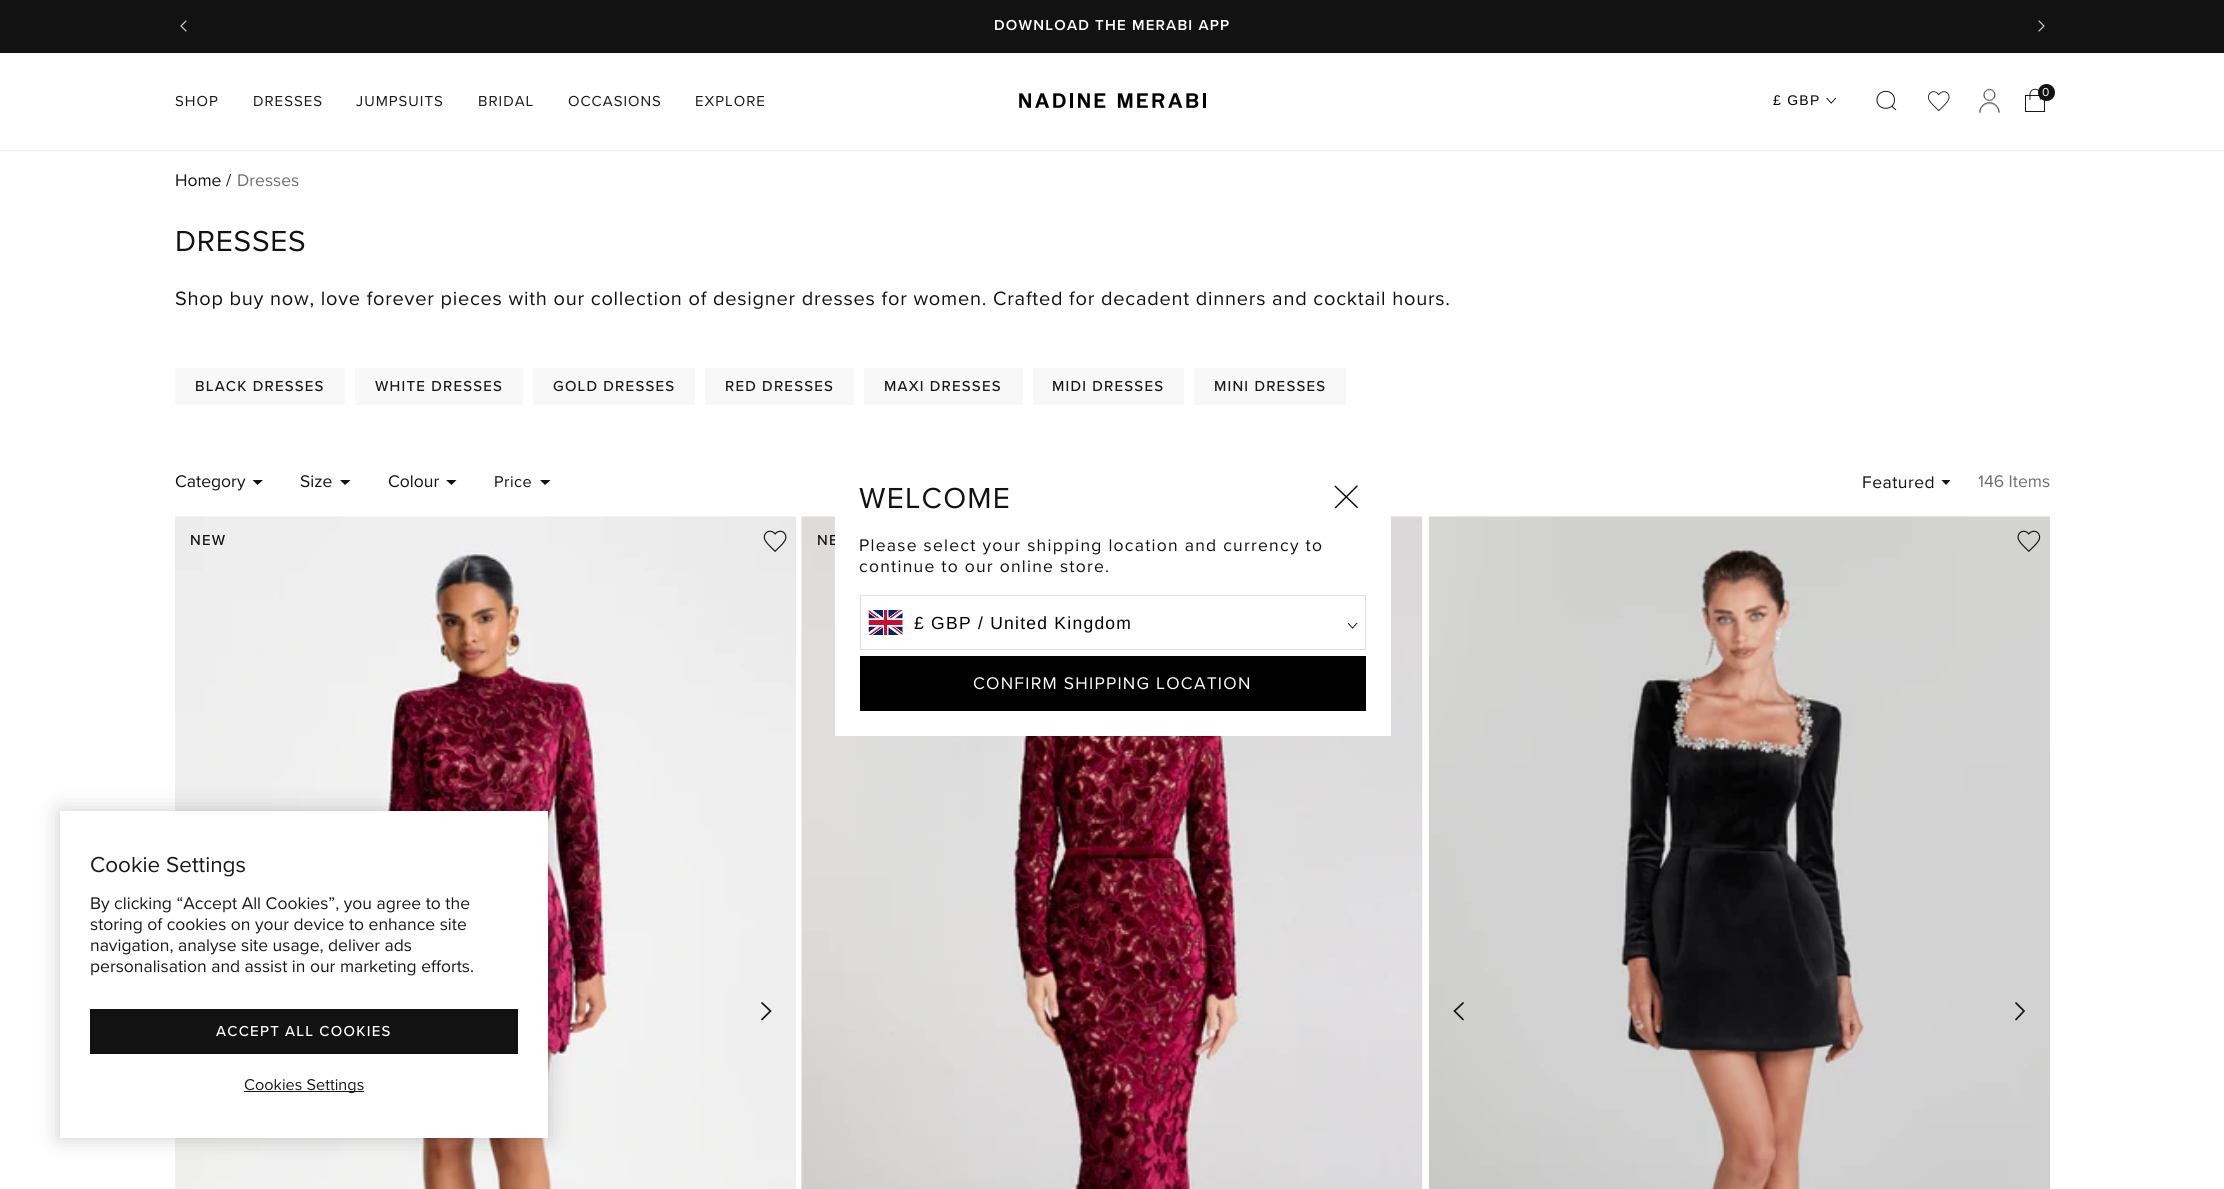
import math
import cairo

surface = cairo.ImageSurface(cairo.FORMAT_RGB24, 2224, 1189)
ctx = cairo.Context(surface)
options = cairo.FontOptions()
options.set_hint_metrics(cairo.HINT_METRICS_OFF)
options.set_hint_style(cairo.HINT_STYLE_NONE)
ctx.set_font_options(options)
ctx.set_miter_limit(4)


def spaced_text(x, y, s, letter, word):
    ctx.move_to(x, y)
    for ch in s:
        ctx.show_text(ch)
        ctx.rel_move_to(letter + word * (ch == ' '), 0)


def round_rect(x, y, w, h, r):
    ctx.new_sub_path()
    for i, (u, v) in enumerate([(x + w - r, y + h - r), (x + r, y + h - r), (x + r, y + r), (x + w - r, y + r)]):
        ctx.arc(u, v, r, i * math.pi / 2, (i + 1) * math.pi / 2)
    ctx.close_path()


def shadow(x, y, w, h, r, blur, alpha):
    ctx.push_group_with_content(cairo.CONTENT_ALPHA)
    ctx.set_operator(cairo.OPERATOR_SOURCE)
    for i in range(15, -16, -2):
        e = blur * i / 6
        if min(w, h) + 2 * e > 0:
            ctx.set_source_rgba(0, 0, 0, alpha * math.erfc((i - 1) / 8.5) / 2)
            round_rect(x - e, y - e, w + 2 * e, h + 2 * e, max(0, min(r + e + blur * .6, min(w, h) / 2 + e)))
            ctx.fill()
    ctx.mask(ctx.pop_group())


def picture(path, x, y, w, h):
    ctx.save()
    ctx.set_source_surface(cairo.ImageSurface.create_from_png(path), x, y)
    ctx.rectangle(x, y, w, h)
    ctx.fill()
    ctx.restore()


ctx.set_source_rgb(1, 1, 1)
ctx.paint()
ctx.set_source_rgb(0.071, 0.071, 0.071)
ctx.rectangle(0, 0, 2224, 53)
ctx.fill()
picture("img1.png", 180, 20, 7, 12)
ctx.select_font_face("Proxima Nova SemiBold")
ctx.set_font_size(15)
ctx.set_source_rgb(1, 1, 1)
spaced_text(994, 30, "DOWNLOAD THE MERABI APP", 1.2, 0)
picture("img2.png", 2038, 20, 7, 12)
ctx.set_source_rgb(0.925, 0.925, 0.925)
ctx.rectangle(0, 150, 2224, 1)
ctx.fill()
ctx.select_font_face("Proxima Nova")
ctx.set_source_rgb(0.098, 0.098, 0.098)
spaced_text(175, 106, "SHOP", 1, 0)
spaced_text(253, 106, "DRESSES", 1, 0)
spaced_text(356, 106, "JUMPSUITS", 1, 0)
spaced_text(478, 106, "BRIDAL", 1, 0)
spaced_text(568, 106, "OCCASIONS", 1, 0)
spaced_text(695, 106, "EXPLORE", 1, 0)
picture("img3.png", 1019, 93, 187, 15)
ctx.select_font_face("Liberation Sans")
ctx.set_font_size(14)
ctx.set_source_rgb(0, 0, 0)
spaced_text(1773, 105, "£ GBP", 1.25, 0)
picture("img4.png", 1826, 98, 10, 6)
ctx.new_path()
ctx.move_to(1891.5, 106)
ctx.line_to(1896, 110)
ctx.move_to(1894.5, 100)
ctx.curve_to(1894.5, 111, 1877, 111, 1877, 100)
ctx.curve_to(1877, 88.5, 1894.5, 88.5, 1894.5, 100)
ctx.close_path()
ctx.set_source_rgb(0.098, 0.098, 0.098)
ctx.set_line_width(1)
ctx.stroke()
picture("img5.png", 1928, 91, 22, 21)
picture("img6.png", 1979, 88, 21, 26)
picture("img7.png", 2025, 88, 20, 24)
ctx.set_source_rgb(0.071, 0.071, 0.071)
ctx.arc(2046.5, 92.5, 8.5, 0, 2 * math.pi)
ctx.fill()
ctx.select_font_face("Proxima Nova")
ctx.set_font_size(12)
ctx.set_source_rgb(1, 1, 1)
spaced_text(2042, 96, "0", 1, 0)
ctx.set_font_size(17.5)
ctx.set_source_rgb(0.071, 0.071, 0.071)
ctx.move_to(175, 186)
ctx.show_text("Home")
ctx.move_to(226, 186)
ctx.show_text("/")
ctx.set_source_rgb(0.431, 0.431, 0.431)
ctx.move_to(237, 186)
ctx.show_text("Dresses")
ctx.set_font_size(30)
ctx.set_source_rgb(0.071, 0.071, 0.071)
spaced_text(175, 251, "DRESSES", 0.75, 0)
ctx.set_font_size(20)
spaced_text(175, 305, "Shop buy now, love forever pieces with our collection of designer dresses for women. Crafted for decadent dinners and cocktail hours.", 0.75, 0)
ctx.set_source_rgb(0.969, 0.969, 0.969)
ctx.rectangle(175, 368, 170, 37)
ctx.fill()
ctx.select_font_face("Proxima Nova Medium")
ctx.set_font_size(15)
ctx.set_source_rgb(0.098, 0.098, 0.098)
spaced_text(195, 391, "BLACK DRESSES", 1.2, 0)
ctx.set_source_rgb(0.969, 0.969, 0.969)
ctx.rectangle(355, 368, 168, 37)
ctx.fill()
ctx.set_source_rgb(0.098, 0.098, 0.098)
spaced_text(375, 391, "WHITE DRESSES", 1.2, 0)
ctx.set_source_rgb(0.969, 0.969, 0.969)
ctx.rectangle(533, 368, 162, 37)
ctx.fill()
ctx.set_source_rgb(0.098, 0.098, 0.098)
spaced_text(553, 391, "GOLD DRESSES", 1.2, 0)
ctx.set_source_rgb(0.969, 0.969, 0.969)
ctx.rectangle(705, 368, 149, 37)
ctx.fill()
ctx.set_source_rgb(0.098, 0.098, 0.098)
spaced_text(725, 391, "RED DRESSES", 1.2, 0)
ctx.set_source_rgb(0.969, 0.969, 0.969)
ctx.rectangle(864, 368, 159, 37)
ctx.fill()
ctx.set_source_rgb(0.098, 0.098, 0.098)
spaced_text(884, 391, "MAXI DRESSES", 1.2, 0)
ctx.set_source_rgb(0.969, 0.969, 0.969)
ctx.rectangle(1033, 368, 151, 37)
ctx.fill()
ctx.set_source_rgb(0.098, 0.098, 0.098)
spaced_text(1052, 391, "MIDI DRESSES", 1.2, 0)
ctx.set_source_rgb(0.969, 0.969, 0.969)
ctx.rectangle(1194, 368, 152, 37)
ctx.fill()
ctx.set_source_rgb(0.098, 0.098, 0.098)
spaced_text(1214, 391, "MINI DRESSES", 1.2, 0)
ctx.select_font_face("Proxima Nova")
ctx.set_font_size(17.5)
ctx.set_source_rgb(0.071, 0.071, 0.071)
ctx.move_to(175, 487)
ctx.show_text("Category")
ctx.new_path()
ctx.move_to(252.5, 480)
ctx.line_to(257.5, 485)
ctx.line_to(263, 480)
ctx.close_path()
ctx.fill()
ctx.move_to(300, 487)
ctx.show_text("Size")
ctx.new_path()
ctx.move_to(340, 480)
ctx.line_to(345, 485)
ctx.line_to(350.5, 480)
ctx.close_path()
ctx.fill()
ctx.move_to(388, 487)
ctx.show_text("Colour")
ctx.new_path()
ctx.move_to(446, 480)
ctx.line_to(451.5, 485)
ctx.line_to(456.5, 480)
ctx.close_path()
ctx.fill()
ctx.set_font_size(16.25)
spaced_text(494, 487, "Price", 0.5, 0)
ctx.new_path()
ctx.move_to(540, 480)
ctx.line_to(545, 485)
ctx.line_to(550.5, 480)
ctx.close_path()
ctx.fill()
ctx.set_font_size(17.5)
spaced_text(1862, 488, "Featured", 0.5, 0)
ctx.new_path()
ctx.move_to(1941.5, 480)
ctx.line_to(1946, 485)
ctx.line_to(1950.5, 480)
ctx.close_path()
ctx.fill()
ctx.set_source_rgb(0.431, 0.431, 0.431)
ctx.move_to(1978, 487)
ctx.show_text("146 Items")
picture("img8.png", 175, 516, 621, 673)
ctx.select_font_face("Proxima Nova Medium")
ctx.set_font_size(15)
ctx.set_source_rgb(0.071, 0.071, 0.071)
spaced_text(190, 545, "NEW", 1.2, 0)
picture("img9.png", 763, 530, 24, 22)
ctx.new_path()
ctx.move_to(762, 1003)
ctx.line_to(770.5, 1011)
ctx.line_to(762, 1019.5)
ctx.set_line_width(1.7)
ctx.set_line_cap(cairo.LINE_CAP_ROUND)
ctx.stroke()
picture("img10.png", 801, 516, 622, 673)
spaced_text(817, 545, "NE", 1.2, 0)
picture("img11.png", 1429, 516, 621, 673)
picture("img12.png", 2017, 530, 24, 22)
ctx.new_path()
ctx.move_to(1463, 1019.5)
ctx.line_to(1454.5, 1011)
ctx.line_to(1463, 1003)
ctx.stroke()
ctx.new_path()
ctx.move_to(2016, 1003)
ctx.line_to(2024, 1011)
ctx.line_to(2016, 1019.5)
ctx.stroke()
ctx.set_source_rgb(1, 1, 1)
ctx.rectangle(835, 516, 556, 220)
ctx.fill()
ctx.select_font_face("Proxima Nova")
ctx.set_font_size(30)
ctx.set_source_rgb(0.071, 0.071, 0.071)
spaced_text(859, 508, "WELCOME", 1.25, 0)
picture("img13.png", 1334, 485, 24, 24)
ctx.set_font_size(17.5)
spaced_text(859, 551, "Please select your shipping location and currency to", 1.25, 0)
spaced_text(859, 572, "continue to our online store.", 1.25, 0)
ctx.rectangle(860.5, 595.5, 505, 54)
ctx.set_source_rgb(0.875, 0.875, 0.875)
ctx.set_line_width(1)
ctx.set_line_cap(cairo.LINE_CAP_BUTT)
ctx.stroke()
picture("img14.png", 868, 610, 35, 25)
ctx.select_font_face("Liberation Sans")
ctx.set_source_rgb(0, 0, 0)
spaced_text(914, 629, "£ GBP / United Kingdom", 1.25, 0)
picture("img15.png", 1348, 623, 10, 6)
ctx.rectangle(860, 656, 506, 55)
ctx.fill()
ctx.select_font_face("Proxima Nova")
ctx.set_source_rgb(1, 1, 1)
spaced_text(973, 689, "CONFIRM SHIPPING LOCATION", 1.25, 0)
ctx.set_source_rgb(0, 0, 0)
shadow(60, 811, 488, 327, 0, 11, 0.2)
ctx.set_source_rgb(1, 1, 1)
ctx.rectangle(60, 811, 488, 327)
ctx.fill()
ctx.set_font_size(22.5)
ctx.set_source_rgb(0.098, 0.098, 0.098)
ctx.move_to(90, 872)
ctx.show_text("Cookie Settings")
ctx.set_font_size(17.5)
ctx.move_to(90, 909)
ctx.show_text("By clicking “Accept All Cookies”, you agree to the")
ctx.move_to(90, 930)
ctx.show_text("storing of cookies on your device to enhance site")
ctx.move_to(90, 951)
ctx.show_text("navigation, analyse site usage, deliver ads")
ctx.move_to(90, 972)
ctx.show_text("personalisation and assist in our marketing efforts.")
ctx.set_source_rgb(0.071, 0.071, 0.071)
ctx.rectangle(90, 1009, 428, 45)
ctx.fill()
ctx.select_font_face("Proxima Nova Medium")
ctx.set_font_size(15)
ctx.set_source_rgb(1, 1, 1)
spaced_text(216, 1036, "ACCEPT ALL COOKIES", 1.25, 0)
ctx.set_source_rgb(0.098, 0.098, 0.098)
ctx.rectangle(244, 1091, 120, 1)
ctx.fill()
ctx.select_font_face("Proxima Nova")
ctx.set_font_size(16.25)
ctx.move_to(244, 1090)
ctx.show_text("Cookies Settings")
surface.write_to_png("page.png")
